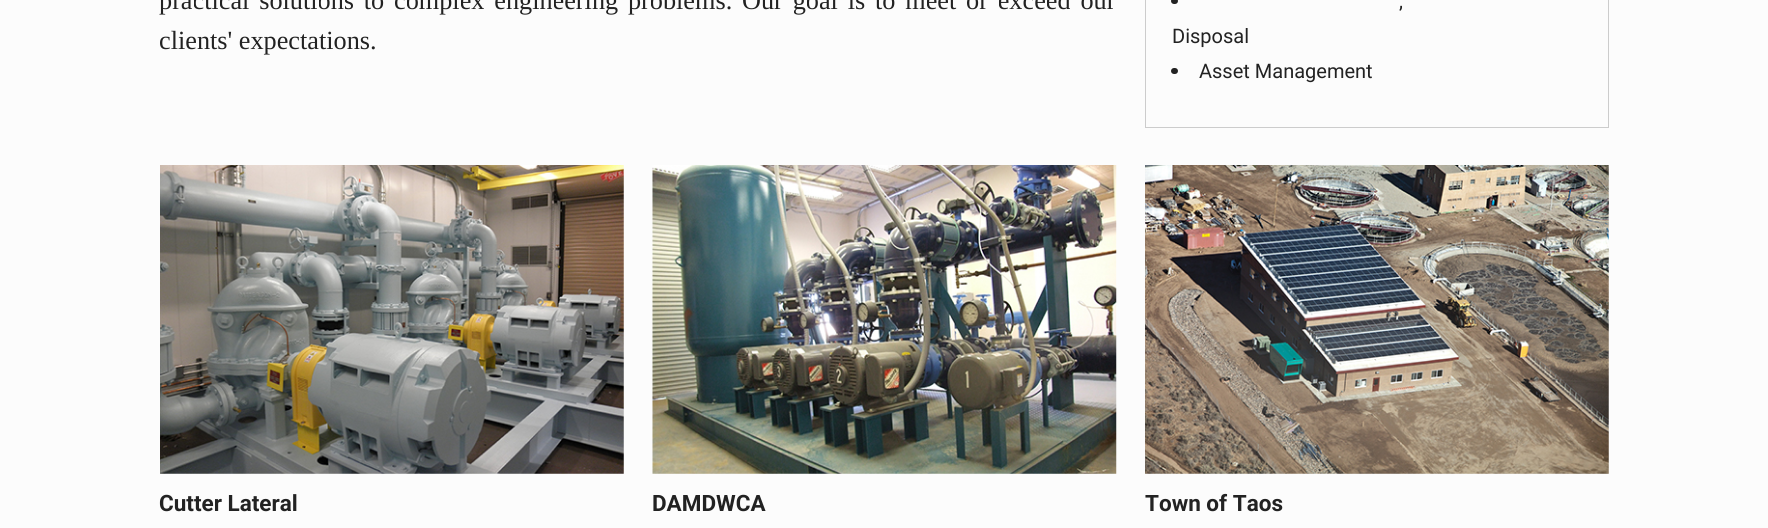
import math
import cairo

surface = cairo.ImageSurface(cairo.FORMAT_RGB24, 1768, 528)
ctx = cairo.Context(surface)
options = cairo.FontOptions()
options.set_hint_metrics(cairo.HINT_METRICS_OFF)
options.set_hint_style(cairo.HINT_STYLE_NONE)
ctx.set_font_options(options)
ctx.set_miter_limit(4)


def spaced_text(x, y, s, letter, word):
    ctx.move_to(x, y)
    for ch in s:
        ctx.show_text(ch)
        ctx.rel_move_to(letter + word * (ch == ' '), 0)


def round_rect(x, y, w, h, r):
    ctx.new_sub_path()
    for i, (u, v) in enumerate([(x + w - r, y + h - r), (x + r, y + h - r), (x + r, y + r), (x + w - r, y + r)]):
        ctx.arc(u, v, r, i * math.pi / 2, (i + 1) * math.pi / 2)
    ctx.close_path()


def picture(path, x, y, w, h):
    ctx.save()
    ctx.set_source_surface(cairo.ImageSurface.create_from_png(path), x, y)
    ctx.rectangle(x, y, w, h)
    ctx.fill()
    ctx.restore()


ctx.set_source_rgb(0.988, 0.988, 0.988)
ctx.paint()
ctx.select_font_face("Liberation Serif")
ctx.set_font_size(26.25)
ctx.set_source_rgb(0.133, 0.133, 0.133)
spaced_text(159, 9, "practical solutions to complex engineering problems. Our goal is to meet or exceed our", 0, 3.25)
ctx.move_to(159, 49)
ctx.show_text("clients' expectations.")
ctx.rectangle(1145.5, -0.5, 463, 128)
ctx.set_source_rgb(0.8, 0.8, 0.8)
ctx.set_line_width(1)
ctx.stroke()
ctx.set_source_rgb(0.133, 0.133, 0.133)
round_rect(1171, -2, 7, 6, 3)
ctx.fill()
ctx.select_font_face("Roboto")
ctx.set_font_size(20)
ctx.move_to(1399, 8)
ctx.show_text(",")
ctx.move_to(1172, 43)
ctx.show_text("Disposal")
round_rect(1171, 68, 7, 6, 3)
ctx.fill()
ctx.move_to(1199, 78)
ctx.show_text("Asset Management")
picture("img1.png", 160, 165, 464, 309)
ctx.select_font_face("Roboto", cairo.FONT_SLANT_NORMAL, cairo.FONT_WEIGHT_BOLD)
ctx.set_font_size(22.5)
ctx.move_to(159, 511)
ctx.show_text("Cutter Lateral")
picture("img2.png", 652, 165, 465, 309)
ctx.move_to(652, 511)
ctx.show_text("DAMDWCA")
picture("img3.png", 1145, 165, 464, 309)
ctx.move_to(1145, 511)
ctx.show_text("Town of Taos")
surface.write_to_png("page.png")
